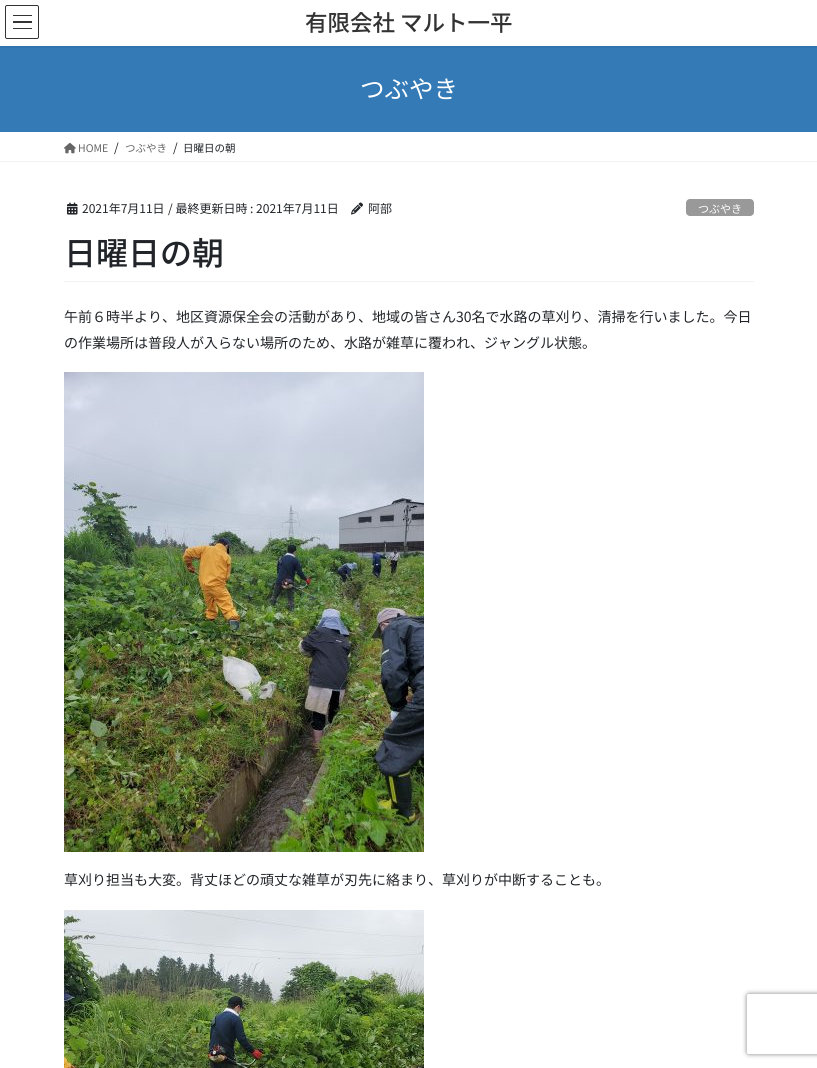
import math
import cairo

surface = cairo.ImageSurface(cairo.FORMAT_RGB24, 817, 1068)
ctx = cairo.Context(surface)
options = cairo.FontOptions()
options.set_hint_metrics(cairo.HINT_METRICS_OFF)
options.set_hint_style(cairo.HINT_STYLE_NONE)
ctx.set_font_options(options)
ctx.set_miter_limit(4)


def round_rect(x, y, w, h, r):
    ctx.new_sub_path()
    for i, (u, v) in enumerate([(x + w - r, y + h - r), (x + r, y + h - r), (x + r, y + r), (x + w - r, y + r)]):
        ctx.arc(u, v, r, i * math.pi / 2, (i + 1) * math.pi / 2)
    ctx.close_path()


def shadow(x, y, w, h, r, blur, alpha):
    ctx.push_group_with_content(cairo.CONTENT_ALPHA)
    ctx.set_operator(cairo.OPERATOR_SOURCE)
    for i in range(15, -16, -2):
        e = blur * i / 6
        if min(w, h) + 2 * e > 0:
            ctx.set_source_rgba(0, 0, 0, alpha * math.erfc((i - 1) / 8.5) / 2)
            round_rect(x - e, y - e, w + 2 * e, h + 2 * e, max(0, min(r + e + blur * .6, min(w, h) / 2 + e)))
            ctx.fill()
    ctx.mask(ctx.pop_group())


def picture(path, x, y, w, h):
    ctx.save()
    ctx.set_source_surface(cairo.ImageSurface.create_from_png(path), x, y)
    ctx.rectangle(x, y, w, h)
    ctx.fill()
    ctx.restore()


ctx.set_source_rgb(1, 1, 1)
ctx.paint()
ctx.set_source_rgb(0.2, 0.478, 0.718)
ctx.rectangle(0, 46, 817, 86)
ctx.fill()
ctx.save()
ctx.rectangle(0, 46, 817, 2)
ctx.clip()
ctx.set_source_rgb(0, 0, 0)
shadow(0, 1, 817, 46, 0, 1.5, 0.1)
ctx.restore()
ctx.set_source_rgb(0.2, 0.2, 0.2)
ctx.rectangle(13, 15, 19, 1)
ctx.fill()
ctx.rectangle(13, 21, 19, 2)
ctx.fill()
ctx.rectangle(13, 28, 19, 1)
ctx.fill()
round_rect(5.5, 5.5, 33, 33, 1.5)
ctx.set_line_width(1)
ctx.stroke()
ctx.select_font_face("Noto Sans JP Medium")
ctx.set_font_size(22.5)
ctx.move_to(305, 31)
ctx.show_text("有限会社 マルト一平")
ctx.select_font_face("Noto Sans JP")
ctx.set_font_size(24.5)
ctx.set_source_rgb(1, 1, 1)
ctx.move_to(360, 98)
ctx.show_text("つぶやき")
ctx.set_source_rgb(0.949, 0.949, 0.949)
ctx.rectangle(0, 161, 817, 1)
ctx.fill()
picture("img1.png", 64, 142, 12, 12)
ctx.set_font_size(10.5)
ctx.set_source_rgb(0.4, 0.4, 0.4)
ctx.move_to(78, 152)
ctx.show_text("HOME")
ctx.set_font_size(12)
ctx.set_source_rgb(0.129, 0.145, 0.161)
ctx.move_to(114, 152)
ctx.show_text("/")
ctx.set_font_size(10.5)
ctx.set_source_rgb(0.4, 0.4, 0.4)
ctx.move_to(125, 152)
ctx.show_text("つぶやき")
ctx.set_font_size(12)
ctx.set_source_rgb(0.129, 0.145, 0.161)
ctx.move_to(173, 152)
ctx.show_text("/")
ctx.set_font_size(10.5)
ctx.move_to(183, 152)
ctx.show_text("日曜日の朝")
ctx.set_source_rgb(0.949, 0.949, 0.949)
ctx.rectangle(64, 281, 690, 1)
ctx.fill()
picture("img2.png", 67, 202, 11, 13)
ctx.set_font_size(12)
ctx.set_source_rgb(0.129, 0.145, 0.161)
ctx.move_to(82, 213)
ctx.show_text("2021年7月11日")
ctx.move_to(168, 213)
ctx.show_text("/ 最終更新日時 : 2021年7月11日")
picture("img3.png", 351, 202, 12, 13)
ctx.move_to(368, 213)
ctx.show_text("阿部")
ctx.set_source_rgb(0.6, 0.6, 0.6)
round_rect(686, 199, 68, 17, 4)
ctx.fill()
ctx.set_font_size(11)
ctx.set_source_rgb(1, 1, 1)
ctx.move_to(698, 213)
ctx.show_text("つぶやき")
ctx.select_font_face("Noto Sans JP Medium")
ctx.set_font_size(32)
ctx.set_source_rgb(0.129, 0.145, 0.161)
ctx.move_to(64, 265)
ctx.show_text("日曜日の朝")
ctx.select_font_face("Noto Sans JP")
ctx.set_font_size(14)
ctx.move_to(64, 322)
ctx.show_text("午前６時半より、地区資源保全会の活動があり、地域の皆さん30名で水路の草刈り、清掃を行いました。今日")
ctx.move_to(64, 348)
ctx.show_text("の作業場所は普段人が入らない場所のため、水路が雑草に覆われ、ジャングル状態。")
picture("img4.png", 64, 372, 360, 480)
ctx.move_to(64, 885)
ctx.show_text("草刈り担当も大変。背丈ほどの頑丈な雑草が刃先に絡まり、草刈りが中断することも。")
picture("img5.png", 64, 910, 360, 158)
ctx.save()
ctx.set_fill_rule(cairo.FILL_RULE_EVEN_ODD)
ctx.new_path()
ctx.move_to(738, 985)
ctx.line_to(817, 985)
ctx.line_to(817, 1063)
ctx.line_to(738, 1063)
ctx.close_path()
ctx.move_to(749, 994)
ctx.line_to(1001, 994)
ctx.curve_to(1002, 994, 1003, 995, 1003, 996)
ctx.line_to(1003, 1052)
ctx.curve_to(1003, 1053, 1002, 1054, 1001, 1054)
ctx.line_to(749, 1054)
ctx.curve_to(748, 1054, 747, 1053, 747, 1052)
ctx.line_to(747, 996)
ctx.curve_to(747, 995, 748, 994, 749, 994)
ctx.close_path()
ctx.clip()
ctx.set_source_rgb(0.502, 0.502, 0.502)
shadow(747, 994, 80, 60, 2, 2.5, 1)
ctx.restore()
surface.write_to_png("page.png")
